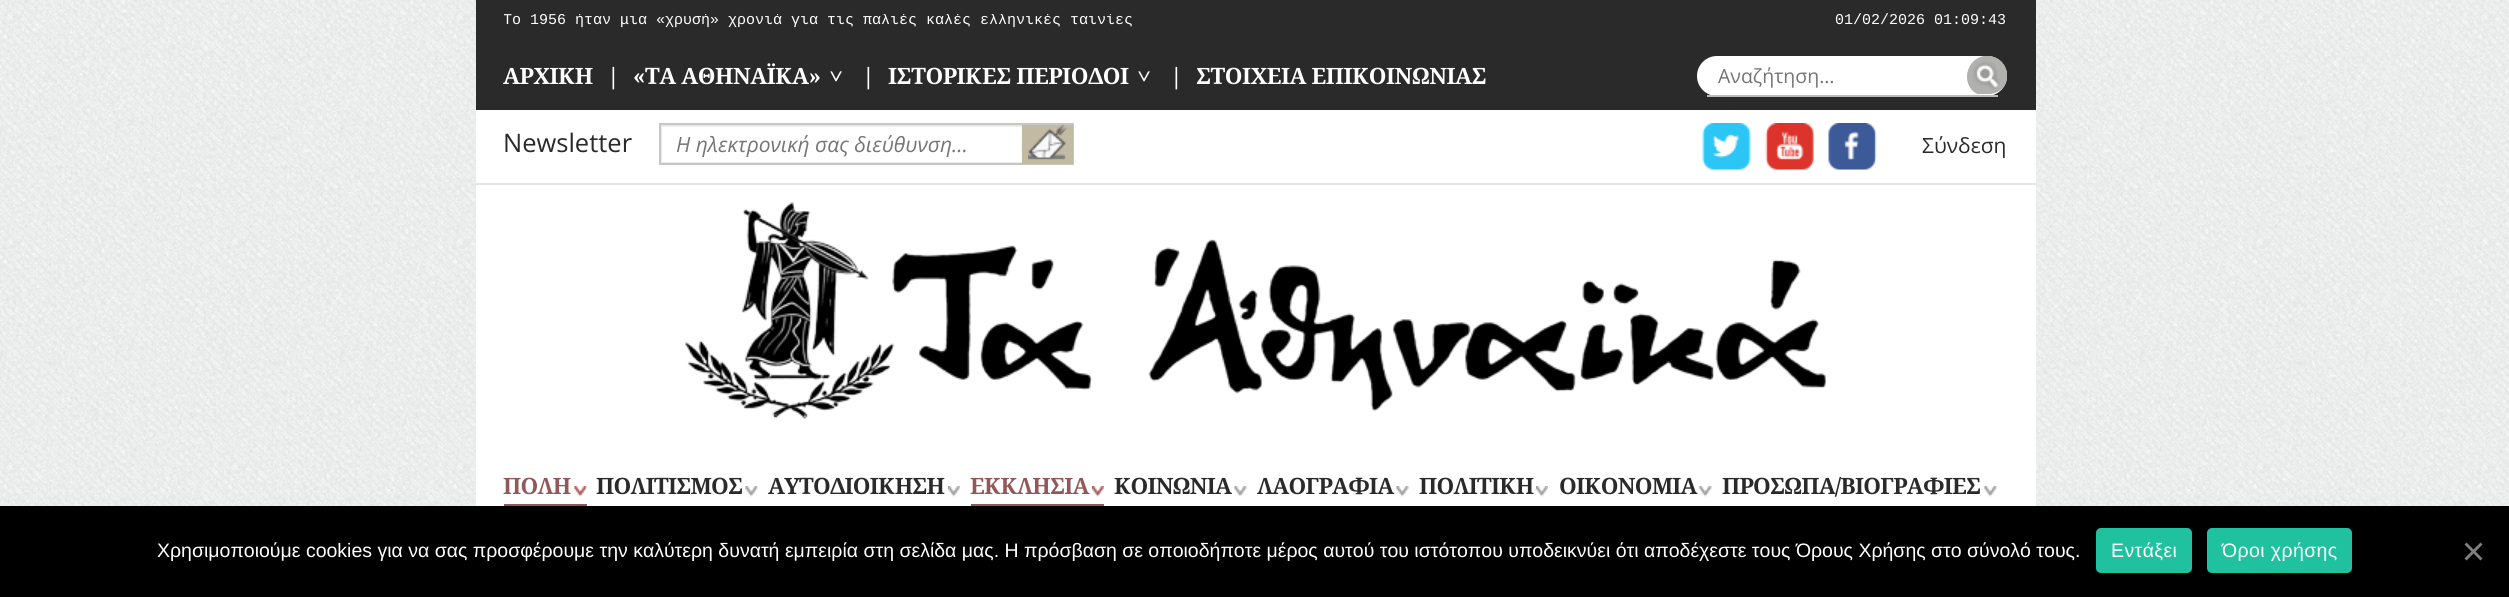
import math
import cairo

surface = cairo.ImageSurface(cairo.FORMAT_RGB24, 2509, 597)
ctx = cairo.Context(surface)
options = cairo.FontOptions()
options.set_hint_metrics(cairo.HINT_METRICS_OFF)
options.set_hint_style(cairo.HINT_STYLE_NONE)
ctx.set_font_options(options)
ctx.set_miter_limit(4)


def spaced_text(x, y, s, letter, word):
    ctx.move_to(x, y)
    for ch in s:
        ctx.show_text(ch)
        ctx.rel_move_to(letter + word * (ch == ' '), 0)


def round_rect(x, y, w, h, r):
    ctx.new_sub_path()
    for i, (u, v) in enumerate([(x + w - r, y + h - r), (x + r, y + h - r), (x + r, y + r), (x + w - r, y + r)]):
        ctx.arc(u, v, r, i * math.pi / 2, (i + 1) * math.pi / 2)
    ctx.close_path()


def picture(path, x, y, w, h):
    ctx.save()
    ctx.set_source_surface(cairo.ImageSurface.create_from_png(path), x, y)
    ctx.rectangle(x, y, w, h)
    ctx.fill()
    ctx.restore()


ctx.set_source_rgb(1, 1, 1)
ctx.paint()
picture("img1.png", 0, 0, 2509, 506)
ctx.set_source_rgb(1, 1, 1)
ctx.rectangle(476, 110, 1560, 396)
ctx.fill()
ctx.set_source_rgb(0.165, 0.165, 0.165)
ctx.rectangle(476, 0, 1560, 110)
ctx.fill()
ctx.save()
ctx.rectangle(504, 14, 1202, 15)
ctx.clip()
ctx.select_font_face("Liberation Mono")
ctx.set_font_size(15)
ctx.set_source_rgb(1, 1, 1)
ctx.move_to(503, 24)
ctx.show_text("Το 1956 ήταν μια «χρυσή» χρονιά για τις παλιές καλές ελληνικές ταινίες")
ctx.restore()
ctx.select_font_face("Liberation Mono")
ctx.set_font_size(15)
ctx.set_source_rgb(1, 1, 1)
ctx.move_to(1835, 24)
ctx.show_text("01/02/2026 01:09:43")
ctx.select_font_face("Noto Serif", cairo.FONT_SLANT_NORMAL, cairo.FONT_WEIGHT_BOLD)
ctx.set_font_size(22.5)
spaced_text(503, 84, "ΑΡΧΙΚΗ", -0.45, 0)
spaced_text(607, 84, "|", -0.45, 0)
spaced_text(633, 84, "«ΤΑ ΑΘΗΝΑΪΚΑ»", -0.45, 0)
ctx.save()
ctx.translate(828, 70)
ctx.rotate(90 * math.pi / 180)
spaced_text(0, 0, ">", -0.45, 0)
ctx.restore()
spaced_text(862, 84, "|", -0.45, 0)
spaced_text(888, 84, "ΙΣΤΟΡΙΚΕΣ ΠΕΡΙΟΔΟΙ", -0.45, 0)
ctx.save()
ctx.translate(1136, 70)
ctx.rotate(90 * math.pi / 180)
spaced_text(0, 0, ">", -0.45, 0)
ctx.restore()
spaced_text(1170, 84, "|", -0.45, 0)
spaced_text(1196, 84, "ΣΤΟΙΧΕΙΑ ΕΠΙΚΟΙΝΩΝΙΑΣ", -0.45, 0)
round_rect(1697, 56, 310, 40, 20)
ctx.fill()
ctx.set_source_rgb(0.733, 0.733, 0.733)
ctx.rectangle(1707, 95, 291, 2)
ctx.fill()
ctx.select_font_face("Open Sans")
ctx.set_font_size(19.5)
ctx.set_source_rgb(0.459, 0.459, 0.459)
ctx.move_to(1718, 83)
ctx.show_text("Αναζήτηση…")
ctx.set_source_rgb(0.694, 0.694, 0.69)
ctx.new_path()
ctx.move_to(1987, 56)
ctx.curve_to(2012, 56, 2015, 93, 1988, 94)
ctx.line_to(1979, 94)
ctx.curve_to(1977, 94, 1974, 92, 1972, 90)
ctx.curve_to(1961, 77, 1970, 56, 1987, 56)
ctx.close_path()
ctx.fill()
picture("img2.png", 1966, 61, 38, 29)
ctx.set_fill_rule(cairo.FILL_RULE_EVEN_ODD)
ctx.new_path()
ctx.move_to(1987, 56)
ctx.curve_to(2012, 56, 2015, 93, 1988, 94)
ctx.line_to(1979, 94)
ctx.curve_to(1977, 94, 1974, 92, 1972, 90)
ctx.curve_to(1961, 77, 1970, 56, 1987, 56)
ctx.close_path()
ctx.move_to(1987, 61)
ctx.curve_to(1967, 61, 1967, 91, 1987, 91)
ctx.curve_to(2007, 91, 2007, 61, 1987, 61)
ctx.close_path()
ctx.fill()
ctx.set_source_rgb(0.89, 0.89, 0.886)
ctx.rectangle(476, 183, 1560, 2)
ctx.fill()
ctx.set_font_size(25.5)
ctx.set_source_rgb(0.165, 0.165, 0.165)
ctx.move_to(503, 152)
ctx.show_text("Newsletter")
ctx.rectangle(661, 126, 411, 37)
ctx.set_source_rgb(0.918, 0.918, 0.918)
ctx.stroke()
ctx.rectangle(660, 124, 413, 40)
ctx.set_source_rgb(0.776, 0.776, 0.773)
ctx.stroke()
ctx.select_font_face("Open Sans", cairo.FONT_SLANT_ITALIC)
ctx.set_font_size(21)
ctx.set_source_rgb(0.459, 0.459, 0.459)
ctx.move_to(676, 152)
ctx.show_text("Η ηλεκτρονική σας διεύθυνση…")
ctx.set_source_rgb(0.765, 0.729, 0.639)
ctx.rectangle(1028, 125, 45, 39)
ctx.fill()
picture("img3.png", 1021, 124, 46, 36)
ctx.rectangle(1022, 125, 6, 39)
ctx.fill()
picture("img4.png", 1702, 123, 49, 47)
picture("img5.png", 1765, 123, 49, 47)
picture("img6.png", 1828, 123, 49, 47)
ctx.select_font_face("Open Sans")
ctx.set_source_rgb(0.165, 0.165, 0.165)
ctx.move_to(1922, 153)
ctx.show_text("Σύνδεση")
picture("img7.png", 685, 202, 1141, 217)
ctx.set_source_rgb(0.573, 0.341, 0.341)
ctx.rectangle(504, 504, 83, 2)
ctx.fill()
ctx.select_font_face("Noto Serif", cairo.FONT_SLANT_NORMAL, cairo.FONT_WEIGHT_BOLD)
ctx.set_font_size(22.5)
spaced_text(503, 494, "ΠΟΛΗ", -0.75, 0)
picture("img8.png", 574, 486, 13, 11)
ctx.set_source_rgb(0.165, 0.165, 0.165)
spaced_text(596, 494, "ΠΟΛΙΤΙΣΜΟΣ", -0.75, 0)
picture("img9.png", 745, 486, 13, 11)
spaced_text(768, 494, "ΑΥΤΟΔΙΟΙΚΗΣΗ", -0.75, 0)
picture("img10.png", 948, 486, 12, 11)
ctx.set_source_rgb(0.573, 0.341, 0.341)
ctx.rectangle(971, 504, 133, 2)
ctx.fill()
spaced_text(970, 494, "ΕΚΚΛΗΣΙΑ", -0.75, 0)
picture("img11.png", 1092, 486, 12, 11)
ctx.set_source_rgb(0.165, 0.165, 0.165)
spaced_text(1114, 494, "ΚΟΙΝΩΝΙΑ", -0.75, 0)
picture("img12.png", 1234, 486, 13, 11)
spaced_text(1257, 494, "ΛΑΟΓΡΑΦΙΑ", -0.75, 0)
picture("img9.png", 1396, 486, 13, 11)
spaced_text(1419, 494, "ΠΟΛΙΤΙΚΗ", -0.75, 0)
picture("img10.png", 1536, 486, 12, 11)
spaced_text(1559, 494, "ΟΙΚΟΝΟΜΙΑ", -0.75, 0)
picture("img12.png", 1699, 486, 13, 11)
spaced_text(1722, 494, "ΠΡΟΣΩΠΑ/ΒΙΟΓΡΑΦΙΕΣ", -0.75, 0)
picture("img12.png", 1984, 486, 13, 11)
ctx.set_source_rgb(0, 0, 0)
ctx.rectangle(0, 506, 2509, 91)
ctx.fill()
ctx.select_font_face("Liberation Sans")
ctx.set_font_size(19.5)
ctx.set_source_rgb(1, 1, 1)
ctx.move_to(157, 557)
ctx.show_text("Χρησιμοποιούμε cookies για να σας προσφέρουμε την καλύτερη δυνατή εμπειρία στη σελίδα μας. Η πρόσβαση σε οποιοδήποτε μέρος αυτού του ιστότοπου υποδεικνύει ότι αποδέχεστε τους Όρους Χρήσης στο σύνολό τους.")
ctx.set_source_rgb(0.125, 0.757, 0.62)
round_rect(2096, 528, 96, 45, 5)
ctx.fill()
ctx.set_source_rgb(1, 1, 1)
spaced_text(2111, 557, "Εντάξει", 0.4, 0)
ctx.set_source_rgb(0.125, 0.757, 0.62)
round_rect(2207, 528, 145, 45, 5)
ctx.fill()
ctx.set_source_rgb(1, 1, 1)
spaced_text(2222, 557, "Όροι χρήσης", 0.4, 0)
ctx.set_source_rgb(0.502, 0.502, 0.502)
ctx.set_fill_rule(cairo.FILL_RULE_WINDING)
ctx.new_path()
ctx.move_to(2480.5, 542.5)
ctx.line_to(2482.5, 544.5)
ctx.line_to(2466.5, 560.5)
ctx.line_to(2464.5, 558.5)
ctx.close_path()
ctx.fill()
ctx.new_path()
ctx.move_to(2464.5, 544.5)
ctx.line_to(2466.5, 542.5)
ctx.line_to(2482.5, 558.5)
ctx.line_to(2480.5, 560.5)
ctx.close_path()
ctx.fill()
surface.write_to_png("page.png")
